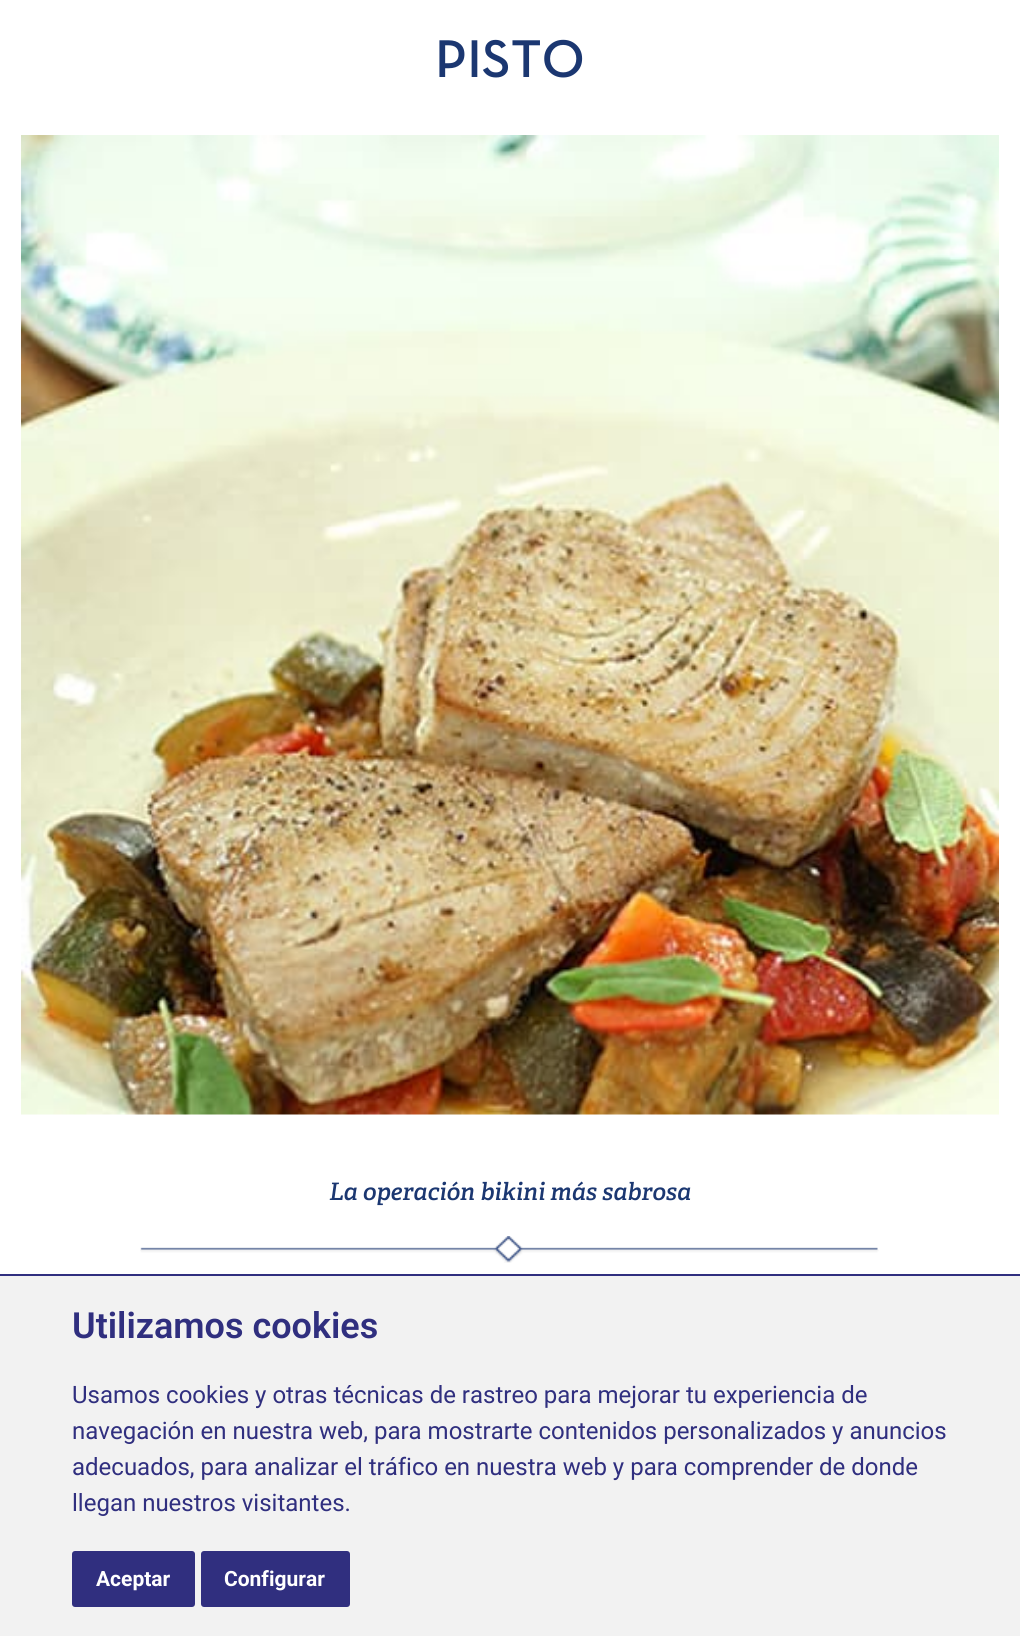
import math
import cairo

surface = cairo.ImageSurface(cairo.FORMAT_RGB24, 1020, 1636)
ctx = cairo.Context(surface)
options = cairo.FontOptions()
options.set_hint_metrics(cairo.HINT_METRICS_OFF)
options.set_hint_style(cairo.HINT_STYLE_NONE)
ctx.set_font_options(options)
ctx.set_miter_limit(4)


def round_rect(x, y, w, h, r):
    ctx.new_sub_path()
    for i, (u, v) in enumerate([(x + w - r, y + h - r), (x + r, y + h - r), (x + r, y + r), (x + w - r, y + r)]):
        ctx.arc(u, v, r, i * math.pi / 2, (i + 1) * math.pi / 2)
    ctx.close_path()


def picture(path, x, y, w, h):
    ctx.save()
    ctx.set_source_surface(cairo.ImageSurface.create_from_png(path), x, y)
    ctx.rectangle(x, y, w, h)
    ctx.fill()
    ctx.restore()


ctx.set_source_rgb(1, 1, 1)
ctx.paint()
ctx.select_font_face("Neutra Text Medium")
ctx.set_font_size(54)
ctx.set_source_rgb(0.106, 0.216, 0.443)
ctx.move_to(435, 77)
ctx.show_text("PISTO")
picture("img1.png", 21, 135, 978, 980)
picture("img2.png", 140, 1236, 739, 27)
ctx.select_font_face("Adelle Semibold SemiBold", cairo.FONT_SLANT_ITALIC)
ctx.set_font_size(24)
ctx.move_to(329, 1200)
ctx.show_text("La operación bikini más sabrosa")
ctx.set_source_rgb(0.949, 0.949, 0.949)
ctx.rectangle(0, 1276, 1020, 360)
ctx.fill()
ctx.set_source_rgb(0.188, 0.184, 0.498)
ctx.rectangle(0, 1274, 1020, 2)
ctx.fill()
ctx.select_font_face("Roboto SemiBold")
ctx.set_font_size(36)
ctx.move_to(72, 1338)
ctx.show_text("Utilizamos cookies")
ctx.select_font_face("Roboto")
ctx.set_font_size(24)
ctx.move_to(72, 1403)
ctx.show_text("Usamos cookies y otras técnicas de rastreo para mejorar tu experiencia de")
ctx.move_to(72, 1439)
ctx.show_text("navegación en nuestra web, para mostrarte contenidos personalizados y anuncios")
ctx.move_to(72, 1475)
ctx.show_text("adecuados, para analizar el tráfico en nuestra web y para comprender de donde")
ctx.move_to(72, 1511)
ctx.show_text("llegan nuestros visitantes.")
round_rect(72, 1551, 123, 56, 3)
ctx.fill()
ctx.select_font_face("Roboto", cairo.FONT_SLANT_NORMAL, cairo.FONT_WEIGHT_BOLD)
ctx.set_font_size(21)
ctx.set_source_rgb(1, 1, 1)
ctx.move_to(96, 1586)
ctx.show_text("Aceptar")
ctx.set_source_rgb(0.188, 0.184, 0.498)
round_rect(201, 1551, 149, 56, 3)
ctx.fill()
ctx.set_source_rgb(1, 1, 1)
ctx.move_to(224, 1586)
ctx.show_text("Configurar")
surface.write_to_png("page.png")
